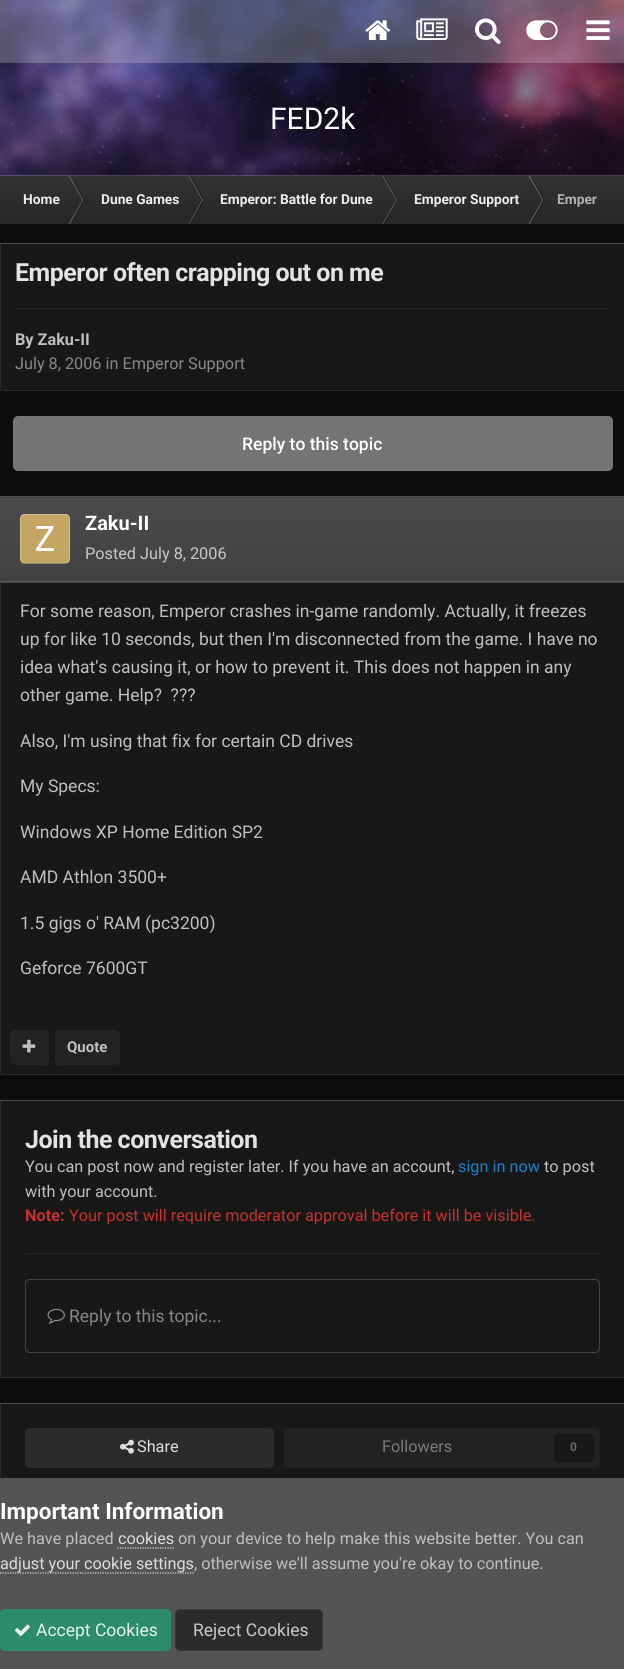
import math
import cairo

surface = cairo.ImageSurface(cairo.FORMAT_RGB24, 624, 1669)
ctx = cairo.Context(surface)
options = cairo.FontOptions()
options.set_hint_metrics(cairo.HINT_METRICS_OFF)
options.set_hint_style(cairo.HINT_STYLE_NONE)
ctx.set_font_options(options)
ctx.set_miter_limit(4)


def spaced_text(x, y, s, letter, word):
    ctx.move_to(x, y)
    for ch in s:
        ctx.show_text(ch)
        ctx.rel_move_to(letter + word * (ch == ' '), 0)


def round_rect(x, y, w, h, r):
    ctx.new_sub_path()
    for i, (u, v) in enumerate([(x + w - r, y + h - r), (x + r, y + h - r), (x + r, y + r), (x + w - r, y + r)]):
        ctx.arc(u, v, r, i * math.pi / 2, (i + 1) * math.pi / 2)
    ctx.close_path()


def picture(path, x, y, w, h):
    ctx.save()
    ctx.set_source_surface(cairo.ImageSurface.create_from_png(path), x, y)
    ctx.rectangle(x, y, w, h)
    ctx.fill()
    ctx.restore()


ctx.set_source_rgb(0.051, 0.051, 0.051)
ctx.paint()
picture("img1.png", 0, 0, 624, 176)
picture("img2.png", 0, 0, 624, 176)
ctx.set_source_rgba(0.784, 0.784, 0.784, 0.3)
ctx.rectangle(0, 0, 624, 63)
ctx.fill()
picture("img3.png", 365, 20, 26, 20)
picture("img4.png", 416, 18, 32, 22)
picture("img5.png", 475, 18, 26, 26)
picture("img6.png", 526, 20, 32, 20)
picture("img7.png", 586, 20, 24, 20)
ctx.set_source_rgba(1, 1, 1, 0.2)
ctx.rectangle(0, 175, 624, 1)
ctx.fill()
ctx.select_font_face("Roboto")
ctx.set_font_size(30)
ctx.set_source_rgb(1, 1, 1)
ctx.move_to(270, 129)
ctx.show_text("FED2k")
gradient = cairo.LinearGradient(313, 176, 313, 224)
gradient.add_color_stop_rgba(0, 0.196, 0.196, 0.196, 1)
gradient.add_color_stop_rgba(1, 0.153, 0.153, 0.153, 1)
ctx.set_source(gradient)
ctx.rectangle(0, 176, 624, 48)
ctx.fill()
ctx.select_font_face("Roboto", cairo.FONT_SLANT_NORMAL, cairo.FONT_WEIGHT_BOLD)
ctx.set_font_size(13.75)
ctx.set_source_rgb(0.929, 0.929, 0.929)
ctx.move_to(23, 204)
ctx.show_text("Home")
ctx.set_source_rgba(1, 1, 1, 0.25)
ctx.new_path()
ctx.move_to(68.5, 176)
ctx.line_to(70, 176)
ctx.line_to(83.5, 200)
ctx.line_to(82.5, 200)
ctx.close_path()
ctx.fill()
ctx.set_source_rgba(0, 0, 0, 0.3)
ctx.new_path()
ctx.move_to(70, 176)
ctx.line_to(71, 176)
ctx.line_to(85, 200)
ctx.line_to(83.5, 200)
ctx.close_path()
ctx.fill()
ctx.set_source_rgba(1, 1, 1, 0.25)
ctx.new_path()
ctx.move_to(68.5, 224)
ctx.line_to(70, 224)
ctx.line_to(83.5, 200)
ctx.line_to(82.5, 200)
ctx.close_path()
ctx.fill()
ctx.set_source_rgba(0, 0, 0, 0.3)
ctx.new_path()
ctx.move_to(70, 224)
ctx.line_to(71, 224)
ctx.line_to(85, 200)
ctx.line_to(83.5, 200)
ctx.close_path()
ctx.fill()
ctx.set_source_rgb(0.929, 0.929, 0.929)
ctx.move_to(101, 204)
ctx.show_text("Dune Games")
ctx.set_source_rgba(1, 1, 1, 0.25)
ctx.new_path()
ctx.move_to(188.5, 176)
ctx.line_to(189.5, 176)
ctx.line_to(203, 200)
ctx.line_to(202, 200)
ctx.close_path()
ctx.fill()
ctx.set_source_rgba(0, 0, 0, 0.3)
ctx.new_path()
ctx.move_to(189.5, 176)
ctx.line_to(191, 176)
ctx.line_to(204.5, 200)
ctx.line_to(203, 200)
ctx.close_path()
ctx.fill()
ctx.set_source_rgba(1, 1, 1, 0.25)
ctx.new_path()
ctx.move_to(188.5, 224)
ctx.line_to(189.5, 224)
ctx.line_to(203, 200)
ctx.line_to(202, 200)
ctx.close_path()
ctx.fill()
ctx.set_source_rgba(0, 0, 0, 0.3)
ctx.new_path()
ctx.move_to(189.5, 224)
ctx.line_to(191, 224)
ctx.line_to(204.5, 200)
ctx.line_to(203, 200)
ctx.close_path()
ctx.fill()
ctx.set_source_rgb(0.929, 0.929, 0.929)
ctx.move_to(220, 204)
ctx.show_text("Emperor: Battle for Dune")
ctx.set_source_rgba(1, 1, 1, 0.25)
ctx.new_path()
ctx.move_to(382.5, 176)
ctx.line_to(383.5, 176)
ctx.line_to(397, 200)
ctx.line_to(396, 200)
ctx.close_path()
ctx.fill()
ctx.set_source_rgba(0, 0, 0, 0.3)
ctx.new_path()
ctx.move_to(383.5, 176)
ctx.line_to(385, 176)
ctx.line_to(398.5, 200)
ctx.line_to(397, 200)
ctx.close_path()
ctx.fill()
ctx.set_source_rgba(1, 1, 1, 0.25)
ctx.new_path()
ctx.move_to(382.5, 224)
ctx.line_to(383.5, 224)
ctx.line_to(397, 200)
ctx.line_to(396, 200)
ctx.close_path()
ctx.fill()
ctx.set_source_rgba(0, 0, 0, 0.3)
ctx.new_path()
ctx.move_to(383.5, 224)
ctx.line_to(385, 224)
ctx.line_to(398.5, 200)
ctx.line_to(397, 200)
ctx.close_path()
ctx.fill()
ctx.set_source_rgb(0.929, 0.929, 0.929)
ctx.move_to(414, 204)
ctx.show_text("Emperor Support")
ctx.set_source_rgba(1, 1, 1, 0.25)
ctx.new_path()
ctx.move_to(528.5, 176)
ctx.line_to(530, 176)
ctx.line_to(543.5, 200)
ctx.line_to(542.5, 200)
ctx.close_path()
ctx.fill()
ctx.set_source_rgba(0, 0, 0, 0.3)
ctx.new_path()
ctx.move_to(530, 176)
ctx.line_to(531, 176)
ctx.line_to(545, 200)
ctx.line_to(543.5, 200)
ctx.close_path()
ctx.fill()
ctx.set_source_rgba(1, 1, 1, 0.25)
ctx.new_path()
ctx.move_to(528.5, 224)
ctx.line_to(530, 224)
ctx.line_to(543.5, 200)
ctx.line_to(542.5, 200)
ctx.close_path()
ctx.fill()
ctx.set_source_rgba(0, 0, 0, 0.3)
ctx.new_path()
ctx.move_to(530, 224)
ctx.line_to(531, 224)
ctx.line_to(545, 200)
ctx.line_to(543.5, 200)
ctx.close_path()
ctx.fill()
ctx.set_source_rgb(0.702, 0.702, 0.702)
ctx.move_to(557, 204)
ctx.show_text("Emper")
ctx.set_source_rgb(0.094, 0.094, 0.094)
ctx.rectangle(0, 244, 624, 147)
ctx.fill()
ctx.set_source_rgb(0.231, 0.231, 0.231)
ctx.rectangle(0, 243, 624, 1)
ctx.fill()
ctx.rectangle(0.5, 243.5, 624, 147)
ctx.set_source_rgba(1, 1, 1, 0.08)
ctx.set_line_width(1)
ctx.stroke()
ctx.set_font_size(25)
ctx.set_source_rgb(0.89, 0.89, 0.89)
spaced_text(15, 281, "Emperor often crapping out on me", -0.5, 0)
ctx.set_source_rgb(0.145, 0.145, 0.145)
ctx.rectangle(15, 308, 595, 1)
ctx.fill()
ctx.set_font_size(16.25)
ctx.set_source_rgb(0.749, 0.749, 0.749)
ctx.move_to(15, 345)
ctx.show_text("By Zaku-II")
ctx.select_font_face("Roboto")
ctx.set_source_rgb(0.529, 0.529, 0.529)
ctx.move_to(15, 369)
ctx.show_text("July 8, 2006 in Emperor Support")
ctx.set_source_rgb(0.455, 0.455, 0.455)
round_rect(13, 416, 600, 55, 5)
ctx.fill()
ctx.select_font_face("Roboto Medium")
ctx.set_font_size(17.5)
ctx.set_source_rgb(1, 1, 1)
ctx.move_to(242, 450)
ctx.show_text("Reply to this topic")
ctx.set_source_rgb(0.094, 0.094, 0.094)
ctx.rectangle(0, 583, 624, 492)
ctx.fill()
ctx.rectangle(0.5, 496.5, 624, 578)
ctx.set_source_rgba(1, 1, 1, 0.08)
ctx.stroke()
ctx.set_source_rgb(0.259, 0.259, 0.259)
ctx.rectangle(0, 497, 624, 1)
ctx.fill()
gradient = cairo.LinearGradient(313, 498, 313, 581)
gradient.add_color_stop_rgba(0, 0.294, 0.294, 0.294, 1)
gradient.add_color_stop_rgba(1, 0.259, 0.259, 0.259, 1)
ctx.set_source(gradient)
ctx.rectangle(0, 498, 624, 83)
ctx.fill()
gradient = cairo.LinearGradient(313, 581, 313, 665)
gradient.add_color_stop_rgba(0, 0.294, 0.294, 0.294, 1)
gradient.add_color_stop_rgba(1, 0.259, 0.259, 0.259, 1)
ctx.set_source(gradient)
ctx.rectangle(0, 582, 624, 1)
ctx.fill()
ctx.set_source_rgb(0.31, 0.31, 0.31)
ctx.rectangle(0, 496, 624, 1)
ctx.fill()
ctx.set_source_rgb(0.341, 0.341, 0.341)
ctx.rectangle(0, 581, 624, 1)
ctx.fill()
ctx.set_source_rgb(0.094, 0.094, 0.094)
round_rect(20, 514, 50, 50, 5)
ctx.fill()
picture("img8.png", 20, 514, 50, 50)
round_rect(20.5, 514.5, 49, 49, 4.5)
ctx.set_source_rgba(1, 1, 1, 0.3)
ctx.stroke()
ctx.select_font_face("Roboto", cairo.FONT_SLANT_NORMAL, cairo.FONT_WEIGHT_BOLD)
ctx.set_font_size(20)
ctx.set_source_rgb(1, 1, 1)
ctx.move_to(85, 530)
ctx.show_text("Zaku-II")
ctx.select_font_face("Roboto")
ctx.set_font_size(16.25)
ctx.set_source_rgb(0.78, 0.78, 0.78)
ctx.move_to(85, 559)
ctx.show_text("Posted July 8, 2006")
ctx.set_font_size(17.5)
ctx.set_source_rgb(0.749, 0.749, 0.749)
ctx.move_to(20, 617)
ctx.show_text("For some reason, Emperor crashes in-game randomly. Actually, it freezes")
ctx.move_to(20, 645)
ctx.show_text("up for like 10 seconds, but then I'm disconnected from the game. I have no")
ctx.move_to(20, 673)
ctx.show_text("idea what's causing it, or how to prevent it. This does not happen in any")
ctx.move_to(20, 701)
ctx.show_text("other game. Help?  ???")
ctx.move_to(20, 747)
ctx.show_text("Also, I'm using that fix for certain CD drives")
ctx.move_to(20, 792)
ctx.show_text("My Specs:")
ctx.move_to(20, 838)
ctx.show_text("Windows XP Home Edition SP2")
ctx.move_to(20, 883)
ctx.show_text("AMD Athlon 3500+")
ctx.move_to(20, 929)
ctx.show_text("1.5 gigs o' RAM (pc3200)")
ctx.move_to(20, 974)
ctx.show_text("Geforce 7600GT")
ctx.set_source_rgb(0.137, 0.137, 0.137)
round_rect(10, 1030, 39, 35, 5)
ctx.fill()
picture("img9.png", 22, 1039, 14, 14)
round_rect(55, 1030, 65, 35, 5)
ctx.fill()
ctx.select_font_face("Roboto", cairo.FONT_SLANT_NORMAL, cairo.FONT_WEIGHT_BOLD)
ctx.set_font_size(15)
ctx.set_source_rgb(0.749, 0.749, 0.749)
ctx.move_to(67, 1052)
ctx.show_text("Quote")
ctx.set_source_rgb(0.094, 0.094, 0.094)
ctx.rectangle(0, 1101, 624, 277)
ctx.fill()
ctx.set_source_rgb(0.231, 0.231, 0.231)
ctx.rectangle(0, 1100, 624, 1)
ctx.fill()
ctx.rectangle(0.5, 1100.5, 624, 277)
ctx.set_source_rgba(1, 1, 1, 0.08)
ctx.stroke()
ctx.set_source_rgb(0.161, 0.161, 0.161)
ctx.rectangle(25, 1253, 575, 1)
ctx.fill()
ctx.set_font_size(25)
ctx.set_source_rgb(0.89, 0.89, 0.89)
spaced_text(25, 1148, "Join the conversation", -0.5, 0)
ctx.select_font_face("Roboto")
ctx.set_font_size(16.25)
ctx.set_source_rgb(0.749, 0.749, 0.749)
ctx.move_to(25, 1172)
ctx.show_text("You can post now and register later. If you have an account,")
ctx.set_source_rgb(0.09, 0.494, 0.788)
ctx.move_to(458, 1172)
ctx.show_text("sign in now")
ctx.set_source_rgb(0.749, 0.749, 0.749)
ctx.move_to(544, 1172)
ctx.show_text("to post")
ctx.move_to(25, 1197)
ctx.show_text("with your account.")
ctx.select_font_face("Roboto", cairo.FONT_SLANT_NORMAL, cairo.FONT_WEIGHT_BOLD)
ctx.set_source_rgb(0.773, 0.188, 0.188)
ctx.move_to(25, 1221)
ctx.show_text("Note:")
ctx.select_font_face("Roboto")
ctx.move_to(69, 1221)
ctx.show_text("Your post will require moderator approval before it will be visible.")
round_rect(25.5, 1279.5, 574, 73, 4.5)
ctx.set_source_rgb(0.267, 0.267, 0.267)
ctx.stroke()
picture("img10.png", 47, 1308, 18, 16)
ctx.set_font_size(17.5)
ctx.set_source_rgb(0.529, 0.529, 0.529)
ctx.move_to(69, 1322)
ctx.show_text("Reply to this topic...")
ctx.set_source_rgb(0.094, 0.094, 0.094)
ctx.rectangle(0, 1404, 624, 74)
ctx.fill()
ctx.set_source_rgb(0.231, 0.231, 0.231)
ctx.rectangle(0, 1403, 624, 1)
ctx.fill()
ctx.rectangle(0.5, 1403.5, 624, 89)
ctx.set_source_rgba(1, 1, 1, 0.08)
ctx.stroke()
ctx.set_source_rgb(0.169, 0.169, 0.169)
round_rect(25, 1428, 249, 40, 5)
ctx.fill()
picture("img11.png", 120, 1439, 14, 15)
ctx.set_font_size(16.25)
ctx.set_source_rgb(0.867, 0.867, 0.867)
ctx.move_to(137, 1452)
ctx.show_text("Share")
ctx.set_source_rgb(0.133, 0.133, 0.133)
round_rect(284, 1428, 316, 40, 5)
ctx.fill()
ctx.set_source_rgb(0.482, 0.482, 0.482)
ctx.move_to(382, 1452)
ctx.show_text("Followers")
ctx.set_source_rgb(0.094, 0.094, 0.094)
round_rect(554, 1433, 40, 30, 5)
ctx.fill()
ctx.select_font_face("Roboto", cairo.FONT_SLANT_NORMAL, cairo.FONT_WEIGHT_BOLD)
ctx.set_font_size(12)
ctx.set_source_rgb(0.424, 0.424, 0.424)
ctx.move_to(570, 1451)
ctx.show_text("0")
ctx.set_source_rgb(0.329, 0.329, 0.329)
ctx.rectangle(0, 1478, 624, 191)
ctx.fill()
ctx.set_font_size(22.5)
ctx.set_source_rgb(1, 1, 1)
ctx.move_to(0, 1519)
ctx.show_text("Important Information")
ctx.select_font_face("Roboto")
ctx.set_font_size(16.25)
ctx.set_source_rgb(0.749, 0.749, 0.749)
ctx.move_to(0, 1544)
ctx.show_text("We have placed")
ctx.set_source_rgb(0.867, 0.867, 0.867)
ctx.move_to(118, 1544)
ctx.show_text("cookies")
ctx.new_path()
ctx.move_to(117.5, 1548)
ctx.line_to(174, 1548)
ctx.set_source_rgb(0.855, 0.855, 0.855)
ctx.set_line_width(1.2)
ctx.set_dash([1.25, 1.25])
ctx.stroke()
ctx.set_source_rgb(0.749, 0.749, 0.749)
ctx.move_to(178, 1544)
ctx.show_text("on your device to help make this website better. You can")
ctx.new_path()
ctx.move_to(0, 1573)
ctx.line_to(194, 1573)
ctx.set_source_rgb(0.855, 0.855, 0.855)
ctx.stroke()
ctx.set_source_rgb(0.867, 0.867, 0.867)
ctx.move_to(0, 1569)
ctx.show_text("adjust your cookie settings")
ctx.set_source_rgb(0.749, 0.749, 0.749)
ctx.move_to(194, 1569)
ctx.show_text(", otherwise we'll assume you're okay to continue.")
ctx.set_source_rgb(0.173, 0.549, 0.412)
round_rect(0, 1609, 171, 42, 5)
ctx.fill()
picture("img12.png", 15, 1624, 15, 13)
ctx.set_font_size(17.5)
ctx.set_source_rgb(0.89, 0.953, 0.925)
ctx.move_to(36, 1636)
ctx.show_text("Accept Cookies")
ctx.set_source_rgb(0.169, 0.169, 0.169)
round_rect(175, 1609, 148, 42, 5)
ctx.fill()
round_rect(175.5, 1609.5, 147, 41, 4.5)
ctx.set_source_rgba(0.8, 0.8, 0.8, 0.07)
ctx.set_line_width(1)
ctx.set_dash([])
ctx.stroke()
ctx.set_source_rgb(0.78, 0.78, 0.78)
ctx.move_to(193, 1636)
ctx.show_text("Reject Cookies")
surface.write_to_png("page.png")
